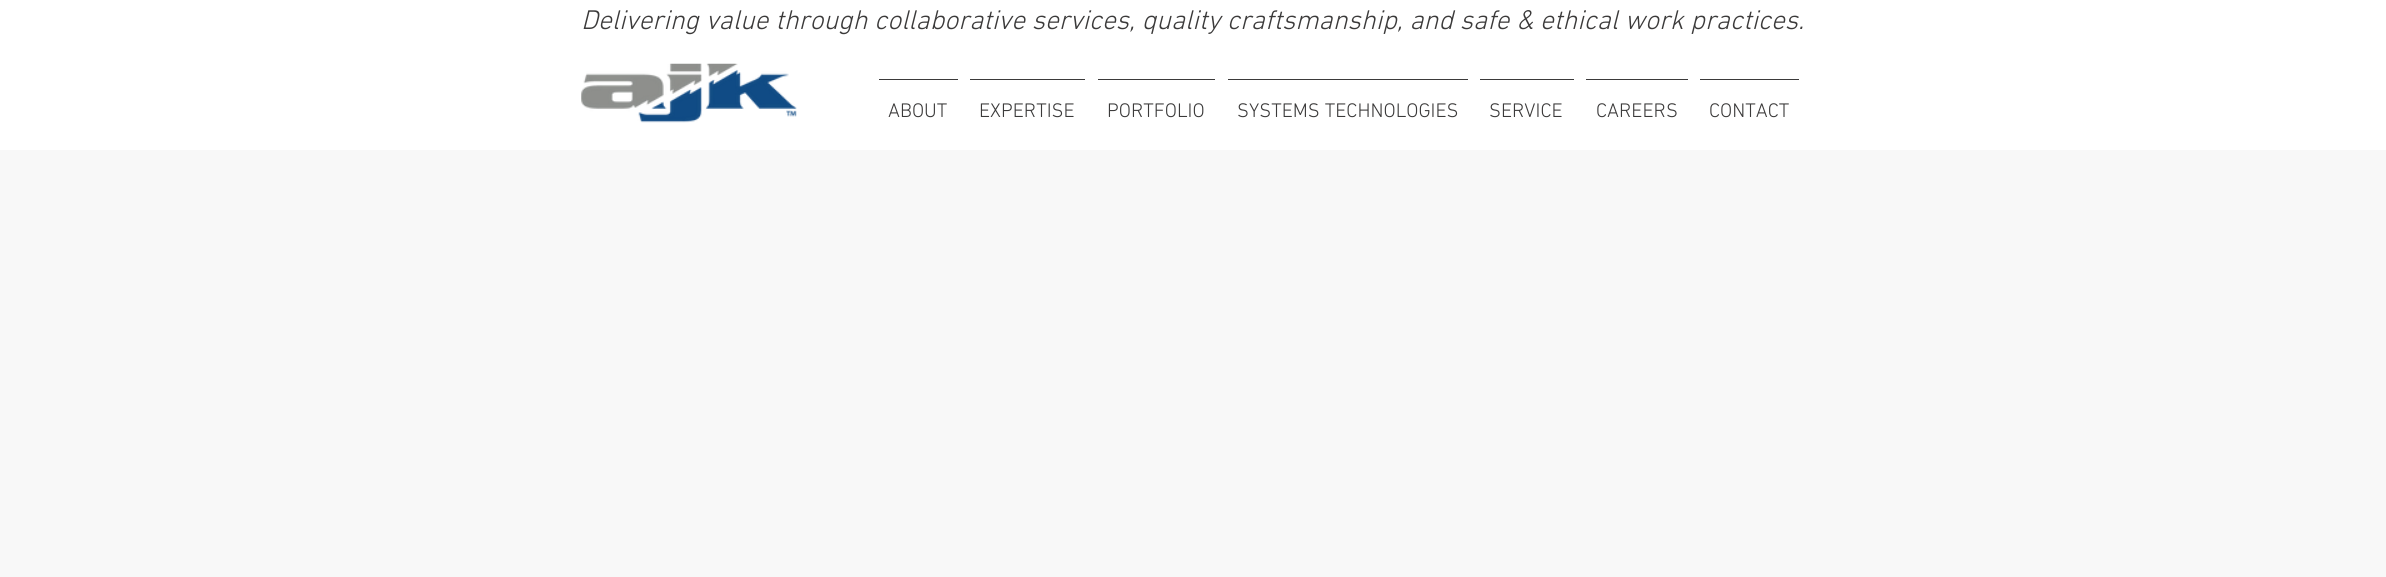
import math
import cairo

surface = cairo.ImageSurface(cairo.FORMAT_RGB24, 2386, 577)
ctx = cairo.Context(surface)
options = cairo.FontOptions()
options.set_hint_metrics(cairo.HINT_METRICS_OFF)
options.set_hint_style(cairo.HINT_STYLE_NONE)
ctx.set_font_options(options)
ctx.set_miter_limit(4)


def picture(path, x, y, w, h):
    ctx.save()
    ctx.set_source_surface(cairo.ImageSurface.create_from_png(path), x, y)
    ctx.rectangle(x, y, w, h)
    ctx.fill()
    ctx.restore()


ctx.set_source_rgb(1, 1, 1)
ctx.paint()
ctx.select_font_face("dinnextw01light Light", cairo.FONT_SLANT_ITALIC)
ctx.set_font_size(27.5)
ctx.set_source_rgb(0.231, 0.227, 0.227)
ctx.move_to(581, 29)
ctx.show_text("Delivering value through collaborative services, quality craftsmanship, and safe & ethical work practices.")
picture("img1.png", 581, 63, 216, 60)
ctx.rectangle(879, 79, 79, 1)
ctx.fill()
ctx.select_font_face("dinnextw01light Light")
ctx.set_font_size(20)
ctx.move_to(888, 117)
ctx.show_text("ABOUT")
ctx.rectangle(970, 79, 115, 1)
ctx.fill()
ctx.move_to(979, 117)
ctx.show_text("EXPERTISE")
ctx.rectangle(1098, 79, 117, 1)
ctx.fill()
ctx.move_to(1107, 117)
ctx.show_text("PORTFOLIO")
ctx.rectangle(1228, 79, 240, 1)
ctx.fill()
ctx.move_to(1237, 117)
ctx.show_text("SYSTEMS TECHNOLOGIES")
ctx.rectangle(1480, 79, 94, 1)
ctx.fill()
ctx.move_to(1489, 117)
ctx.show_text("SERVICE")
ctx.rectangle(1586, 79, 102, 1)
ctx.fill()
ctx.move_to(1596, 117)
ctx.show_text("CAREERS")
ctx.rectangle(1700, 79, 99, 1)
ctx.fill()
ctx.move_to(1709, 117)
ctx.show_text("CONTACT")
ctx.set_source_rgb(0.969, 0.969, 0.969)
ctx.rectangle(0, 150, 2386, 427)
ctx.fill()
surface.write_to_png("page.png")
